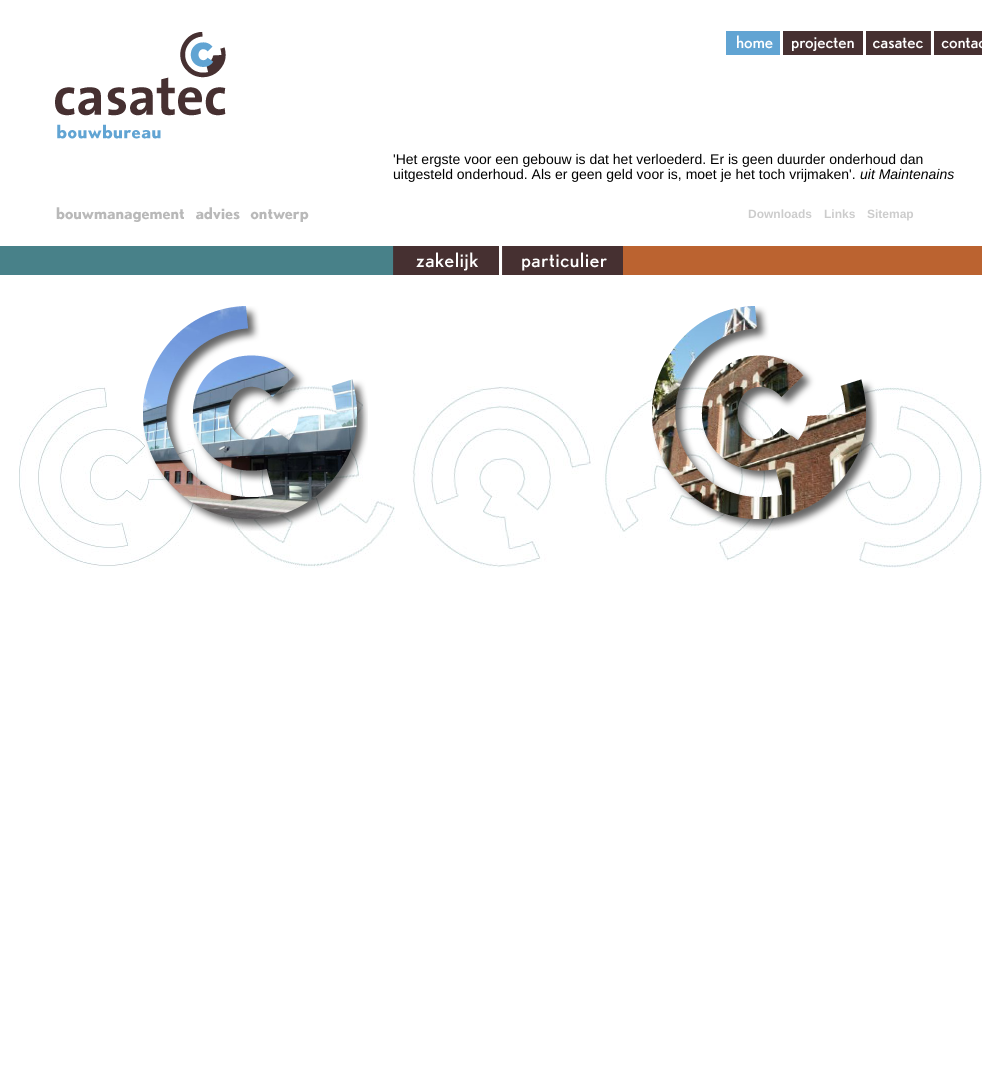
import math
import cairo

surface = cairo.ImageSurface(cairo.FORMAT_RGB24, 982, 1078)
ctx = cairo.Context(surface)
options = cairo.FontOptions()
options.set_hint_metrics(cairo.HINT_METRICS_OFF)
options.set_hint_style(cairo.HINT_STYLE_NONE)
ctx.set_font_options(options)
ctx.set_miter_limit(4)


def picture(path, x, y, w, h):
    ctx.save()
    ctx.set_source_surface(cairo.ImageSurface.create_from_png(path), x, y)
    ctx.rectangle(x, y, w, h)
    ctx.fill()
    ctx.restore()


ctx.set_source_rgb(1, 1, 1)
ctx.paint()
picture("img1.png", 19, 386, 963, 182)
picture("img2.png", 55, 32, 254, 190)
picture("img3.png", 726, 31, 54, 24)
picture("img4.png", 783, 31, 80, 24)
picture("img5.png", 866, 31, 65, 24)
picture("img6.png", 934, 31, 48, 24)
ctx.select_font_face("Liberation Sans")
ctx.set_font_size(14)
ctx.set_source_rgb(0, 0, 0)
ctx.move_to(393, 164)
ctx.show_text("'Het ergste voor een gebouw is dat het verloederd. Er is geen duurder onderhoud dan")
ctx.move_to(393, 179)
ctx.show_text("uitgesteld onderhoud. Als er geen geld voor is, moet je het toch vrijmaken'.")
ctx.select_font_face("Liberation Sans", cairo.FONT_SLANT_ITALIC)
ctx.move_to(860, 179)
ctx.show_text("uit Maintenains")
ctx.select_font_face("Liberation Sans", cairo.FONT_SLANT_NORMAL, cairo.FONT_WEIGHT_BOLD)
ctx.set_font_size(12)
ctx.set_source_rgb(0.8, 0.8, 0.8)
ctx.move_to(748, 218)
ctx.show_text("Downloads")
ctx.move_to(824, 218)
ctx.show_text("Links")
ctx.move_to(867, 218)
ctx.show_text("Sitemap")
picture("img7.png", 0, 246, 499, 29)
picture("img8.png", 502, 246, 480, 29)
picture("img9.png", 143, 306, 225, 225)
picture("img10.png", 652, 306, 225, 225)
surface.write_to_png("page.png")
